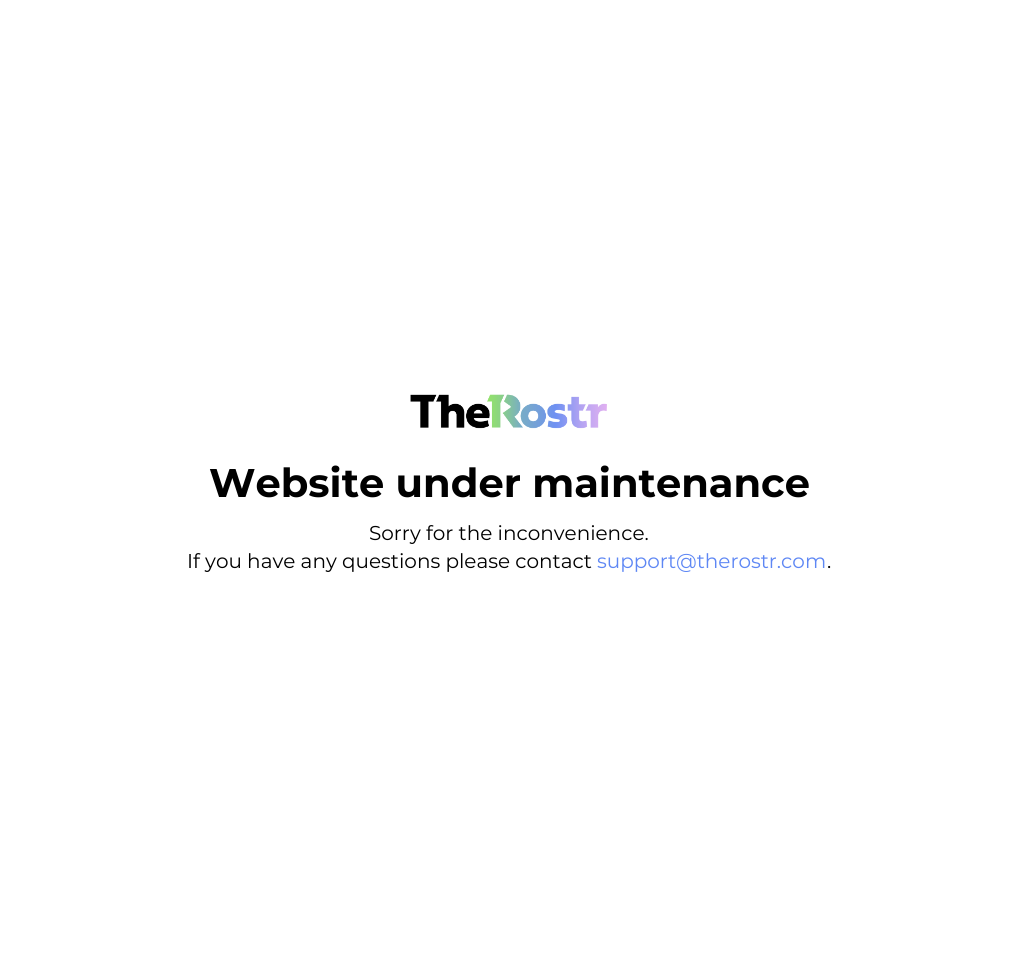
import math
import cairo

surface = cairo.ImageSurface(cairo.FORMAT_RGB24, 1018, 966)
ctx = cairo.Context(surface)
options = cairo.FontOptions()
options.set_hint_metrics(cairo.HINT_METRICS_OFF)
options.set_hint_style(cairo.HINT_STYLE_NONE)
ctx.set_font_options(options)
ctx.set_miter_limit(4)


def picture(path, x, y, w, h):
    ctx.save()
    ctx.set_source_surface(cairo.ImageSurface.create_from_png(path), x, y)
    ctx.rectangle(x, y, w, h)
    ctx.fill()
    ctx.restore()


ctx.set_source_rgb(1, 1, 1)
ctx.paint()
picture("img1.png", 410, 394, 197, 35)
ctx.select_font_face("Montserrat", cairo.FONT_SLANT_NORMAL, cairo.FONT_WEIGHT_BOLD)
ctx.set_font_size(40)
ctx.set_source_rgb(0, 0, 0)
ctx.move_to(209, 497)
ctx.show_text("Website under maintenance")
ctx.select_font_face("Montserrat")
ctx.set_font_size(20)
ctx.move_to(369, 540)
ctx.show_text("Sorry for the inconvenience.")
ctx.move_to(187, 568)
ctx.show_text("If you have any questions please contact")
ctx.set_source_rgb(0.369, 0.529, 0.957)
ctx.move_to(597, 568)
ctx.show_text("support@therostr.com")
ctx.set_source_rgb(0, 0, 0)
ctx.move_to(827, 568)
ctx.show_text(".")
surface.write_to_png("page.png")
